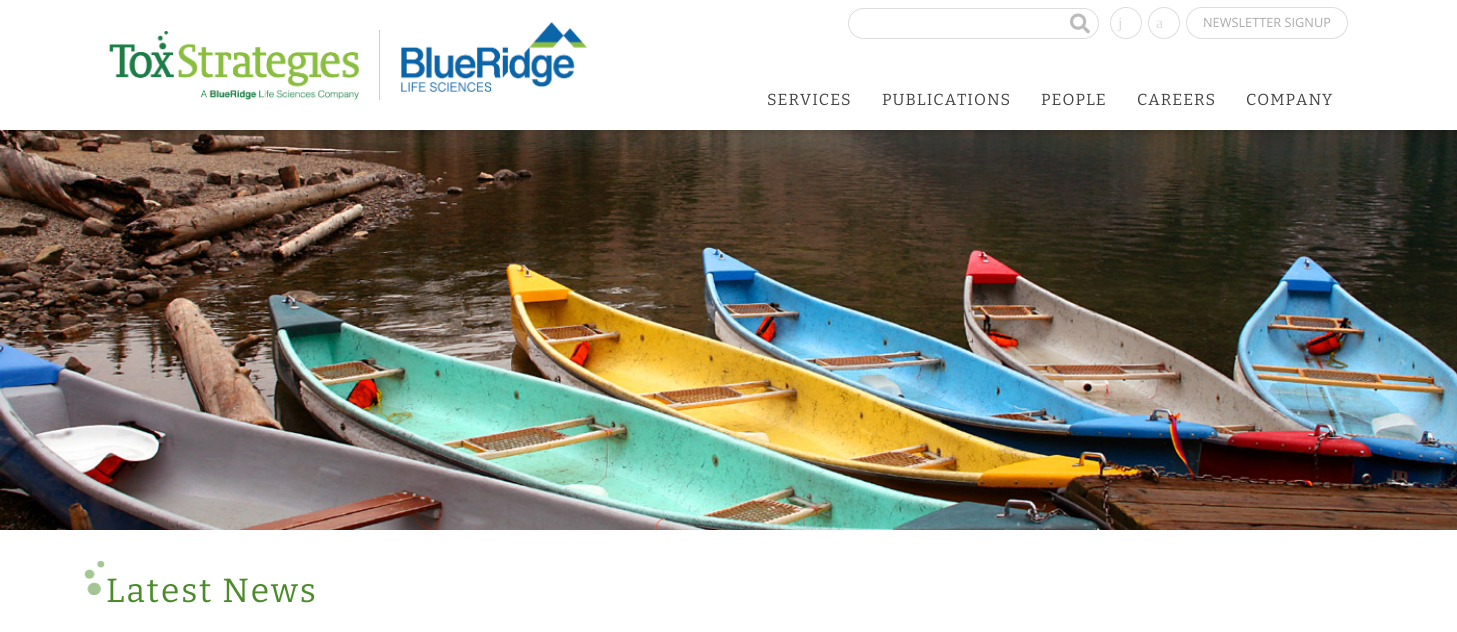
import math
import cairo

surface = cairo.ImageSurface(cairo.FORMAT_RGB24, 1457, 632)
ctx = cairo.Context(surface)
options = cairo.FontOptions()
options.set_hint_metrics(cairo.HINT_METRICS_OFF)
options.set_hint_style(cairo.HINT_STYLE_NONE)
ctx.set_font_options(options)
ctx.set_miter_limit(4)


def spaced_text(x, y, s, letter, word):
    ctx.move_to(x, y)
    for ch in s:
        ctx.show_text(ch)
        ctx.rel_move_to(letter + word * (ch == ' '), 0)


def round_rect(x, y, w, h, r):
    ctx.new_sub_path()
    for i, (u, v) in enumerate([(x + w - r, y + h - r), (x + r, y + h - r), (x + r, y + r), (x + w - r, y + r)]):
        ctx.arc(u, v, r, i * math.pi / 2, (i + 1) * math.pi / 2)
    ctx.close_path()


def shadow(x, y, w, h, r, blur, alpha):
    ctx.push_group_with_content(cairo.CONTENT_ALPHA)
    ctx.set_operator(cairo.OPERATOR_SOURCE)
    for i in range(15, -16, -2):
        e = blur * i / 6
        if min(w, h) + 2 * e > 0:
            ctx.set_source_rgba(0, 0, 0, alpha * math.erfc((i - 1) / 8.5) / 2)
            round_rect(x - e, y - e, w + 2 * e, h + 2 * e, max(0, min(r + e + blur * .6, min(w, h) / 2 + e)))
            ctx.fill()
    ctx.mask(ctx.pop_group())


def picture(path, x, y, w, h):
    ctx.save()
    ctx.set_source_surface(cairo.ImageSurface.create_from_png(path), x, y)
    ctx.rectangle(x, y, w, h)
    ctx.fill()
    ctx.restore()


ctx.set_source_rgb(1, 1, 1)
ctx.paint()
picture("img4.png", 0, 130, 1457, 400)
ctx.save()
ctx.rectangle(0, 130, 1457, 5)
ctx.clip()
ctx.set_source_rgb(0, 0, 0)
shadow(0, 2, 1457, 130, 0, 3, 0.15)
ctx.restore()
picture("img1.png", 109, 31, 250, 69)
ctx.set_source_rgb(0.8, 0.8, 0.8)
ctx.rectangle(379, 30, 1, 70)
ctx.fill()
picture("img2.png", 401, 22, 186, 70)
round_rect(848.5, 8.5, 250, 30, 15)
ctx.set_source_rgb(0.867, 0.867, 0.867)
ctx.set_line_width(1)
ctx.stroke()
picture("img3.png", 1070, 13, 20, 21)
ctx.arc(1126, 23, 15.5, 0, 2 * math.pi)
ctx.stroke()
ctx.select_font_face("Liberation Serif")
ctx.set_font_size(16)
ctx.move_to(1118, 28)
ctx.show_text("j")
ctx.new_path()
ctx.arc(1164, 23, 15.5, 0, 2 * math.pi)
ctx.stroke()
ctx.move_to(1156, 28)
ctx.show_text("a")
round_rect(1186.5, 7.5, 161, 31, 15.5)
ctx.stroke()
ctx.select_font_face("Open Sans")
ctx.set_font_size(12.75)
ctx.set_source_rgb(0.667, 0.667, 0.667)
ctx.move_to(1203, 27)
ctx.show_text("NEWSLETTER SIGNUP")
ctx.select_font_face("Bitter")
ctx.set_font_size(16)
ctx.set_source_rgb(0.267, 0.267, 0.267)
spaced_text(767, 105, "SERVICES", 1, 0)
spaced_text(882, 105, "PUBLICATIONS", 1, 0)
spaced_text(1041, 105, "PEOPLE", 1, 0)
spaced_text(1137, 105, "CAREERS", 1, 0)
spaced_text(1246, 105, "COMPANY", 1, 0)
picture("img5.png", 84, 560, 21, 35)
ctx.set_font_size(33.5)
ctx.set_source_rgb(0.294, 0.545, 0.165)
spaced_text(106, 602, "Latest News", 2, 0)
surface.write_to_png("page.png")
